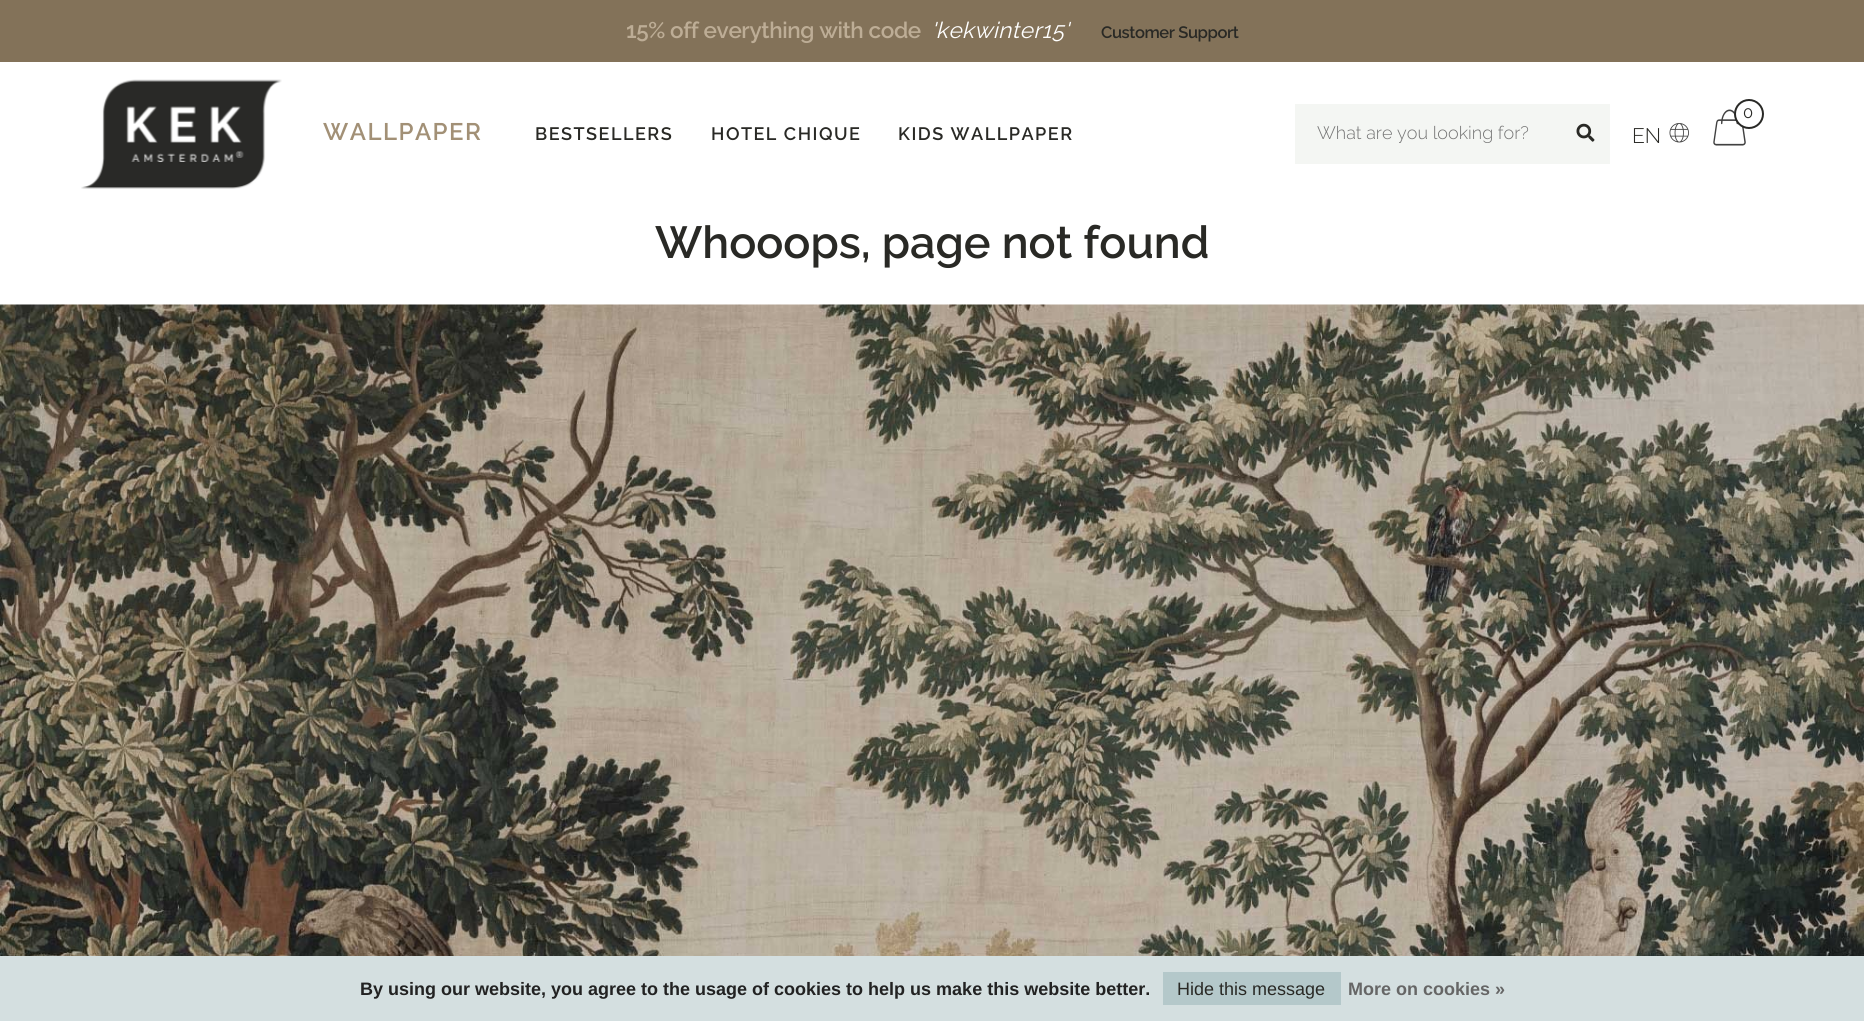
import math
import cairo

surface = cairo.ImageSurface(cairo.FORMAT_RGB24, 1864, 1021)
ctx = cairo.Context(surface)
options = cairo.FontOptions()
options.set_hint_metrics(cairo.HINT_METRICS_OFF)
options.set_hint_style(cairo.HINT_STYLE_NONE)
ctx.set_font_options(options)
ctx.set_miter_limit(4)


def spaced_text(x, y, s, letter, word):
    ctx.move_to(x, y)
    for ch in s:
        ctx.show_text(ch)
        ctx.rel_move_to(letter + word * (ch == ' '), 0)


def picture(path, x, y, w, h):
    ctx.save()
    ctx.set_source_surface(cairo.ImageSurface.create_from_png(path), x, y)
    ctx.rectangle(x, y, w, h)
    ctx.fill()
    ctx.restore()


ctx.set_source_rgb(1, 1, 1)
ctx.paint()
ctx.set_source_rgb(0.514, 0.447, 0.349)
ctx.rectangle(0, 0, 1864, 62)
ctx.fill()
ctx.select_font_face("Raleway SemiBold")
ctx.set_font_size(22.5)
ctx.set_source_rgb(0.741, 0.678, 0.588)
spaced_text(626, 38, "15% off everything with code", -0.4, 0)
ctx.select_font_face("Raleway", cairo.FONT_SLANT_ITALIC)
ctx.set_source_rgb(1, 1, 1)
spaced_text(931, 38, "'kekwinter15'", 0.4, 0)
ctx.select_font_face("Raleway SemiBold")
ctx.set_font_size(16.5)
ctx.set_source_rgb(0.161, 0.161, 0.145)
spaced_text(1101, 38, "Customer Support", -0.4, 0)
picture("img1.png", 81, 79, 201, 110)
ctx.set_font_size(24)
ctx.set_source_rgb(0.635, 0.565, 0.463)
spaced_text(323, 140, "WALLPAPER", 1.5, 0)
ctx.set_font_size(18)
ctx.set_source_rgb(0.161, 0.161, 0.145)
spaced_text(535, 140, "BESTSELLERS", 1.5, 0)
spaced_text(711, 140, "HOTEL CHIQUE", 1.5, 0)
spaced_text(898, 140, "KIDS WALLPAPER", 1.5, 0)
ctx.set_source_rgb(0.957, 0.961, 0.953)
ctx.rectangle(1295, 104, 315, 60)
ctx.fill()
ctx.select_font_face("Raleway Light")
ctx.set_source_rgb(0.459, 0.459, 0.459)
ctx.move_to(1317, 139)
ctx.show_text("What are you looking for?")
picture("img2.png", 1576, 123, 19, 19)
picture("img3.png", 1713, 109, 33, 37)
ctx.set_source_rgb(1, 1, 1)
ctx.arc(1749, 114, 14, 0, 2 * math.pi)
ctx.fill_preserve()
ctx.set_source_rgb(0.161, 0.161, 0.149)
ctx.stroke()
ctx.select_font_face("Raleway")
ctx.set_font_size(16.5)
ctx.set_source_rgb(0.161, 0.161, 0.145)
ctx.move_to(1743, 118)
ctx.show_text("0")
ctx.select_font_face("Raleway Light")
ctx.set_font_size(21)
ctx.move_to(1632, 143)
ctx.show_text("EN")
picture("img4.png", 1669, 123, 20, 20)
ctx.select_font_face("Raleway SemiBold")
ctx.set_font_size(45)
ctx.move_to(655, 258)
ctx.show_text("Whooops, page not found")
picture("img5.png", 0, 304, 1864, 652)
ctx.set_source_rgb(0.831, 0.875, 0.878)
ctx.rectangle(0, 956, 1864, 65)
ctx.fill()
ctx.select_font_face("Liberation Sans", cairo.FONT_SLANT_NORMAL, cairo.FONT_WEIGHT_BOLD)
ctx.set_font_size(18)
ctx.set_source_rgb(0.133, 0.133, 0.133)
ctx.move_to(360, 995)
ctx.show_text("By using our website, you agree to the usage of cookies to help us make this website better.")
ctx.set_source_rgb(0.706, 0.784, 0.792)
ctx.rectangle(1163, 972, 178, 33)
ctx.fill()
ctx.select_font_face("Liberation Sans")
ctx.set_source_rgb(0.161, 0.161, 0.145)
ctx.move_to(1177, 995)
ctx.show_text("Hide this message")
ctx.select_font_face("Liberation Sans", cairo.FONT_SLANT_NORMAL, cairo.FONT_WEIGHT_BOLD)
ctx.set_source_rgb(0.4, 0.4, 0.4)
ctx.move_to(1348, 995)
ctx.show_text("More on cookies »")
surface.write_to_png("page.png")
